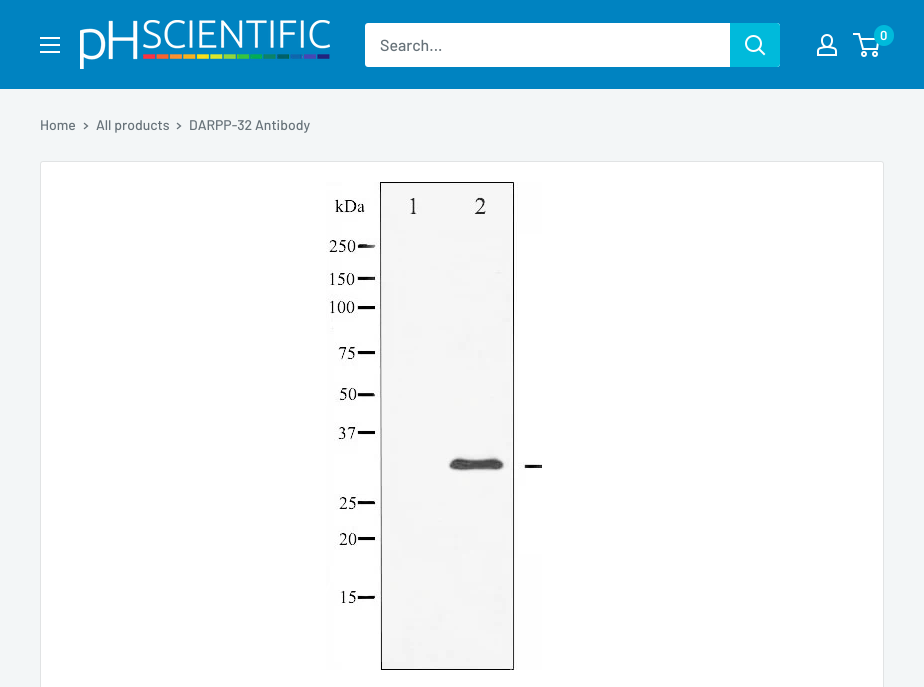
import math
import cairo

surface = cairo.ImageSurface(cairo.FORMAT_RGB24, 924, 687)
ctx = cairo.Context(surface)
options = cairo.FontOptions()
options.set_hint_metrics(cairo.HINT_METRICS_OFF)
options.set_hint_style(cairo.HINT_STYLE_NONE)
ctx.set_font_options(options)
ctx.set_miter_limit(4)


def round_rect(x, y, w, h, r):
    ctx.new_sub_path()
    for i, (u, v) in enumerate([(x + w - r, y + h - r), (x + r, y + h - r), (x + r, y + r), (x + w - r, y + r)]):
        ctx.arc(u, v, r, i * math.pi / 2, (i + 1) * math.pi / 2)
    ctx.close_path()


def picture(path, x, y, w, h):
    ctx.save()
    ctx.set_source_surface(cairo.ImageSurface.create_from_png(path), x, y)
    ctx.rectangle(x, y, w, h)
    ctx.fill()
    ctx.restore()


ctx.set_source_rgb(0.953, 0.961, 0.965)
ctx.paint()
ctx.set_source_rgb(0, 0.514, 0.757)
ctx.rectangle(0, 0, 924, 89)
ctx.fill()
picture("img1.png", 80, 20, 250, 49)
picture("img2.png", 817, 34, 20, 22)
ctx.arc(864, 54, 2, 0, 2 * math.pi)
ctx.set_source_rgb(1, 1, 1)
ctx.stroke()
ctx.arc(875, 54, 2, 0, 2 * math.pi)
ctx.stroke()
ctx.new_path()
ctx.move_to(860.5, 39)
ctx.line_to(878.5, 39)
ctx.line_to(877, 49)
ctx.line_to(863, 49)
ctx.line_to(859, 34)
ctx.line_to(853, 34)
ctx.stroke()
ctx.set_source_rgb(0, 0.729, 0.859)
round_rect(874, 25, 20, 21, 10)
ctx.fill()
ctx.select_font_face("Barlow SemiBold")
ctx.set_font_size(13)
ctx.set_source_rgb(1, 1, 1)
ctx.move_to(880, 40)
ctx.show_text("0")
picture("img3.png", 40, 37, 20, 16)
round_rect(365, 23, 415, 44, 3)
ctx.fill()
ctx.select_font_face("Barlow Medium")
ctx.set_font_size(16)
ctx.set_source_rgb(0.404, 0.447, 0.475)
ctx.move_to(380, 51)
ctx.show_text("Search...")
ctx.set_source_rgb(0, 0.729, 0.859)
ctx.new_path()
ctx.move_to(730, 23)
ctx.line_to(777, 23)
ctx.curve_to(778.5, 23, 780, 24.5, 780, 26)
ctx.line_to(780, 64)
ctx.curve_to(780, 65.5, 778.5, 67, 777, 67)
ctx.line_to(730, 67)
ctx.close_path()
ctx.fill()
ctx.new_path()
ctx.move_to(764, 54)
ctx.line_to(759, 49)
ctx.set_source_rgb(1, 1, 1)
ctx.set_line_cap(cairo.LINE_CAP_SQUARE)
ctx.stroke()
ctx.arc(753.5, 43.5, 7.5, 0, 2 * math.pi)
ctx.set_line_cap(cairo.LINE_CAP_BUTT)
ctx.stroke()
ctx.set_font_size(14)
ctx.set_source_rgb(0.404, 0.447, 0.475)
ctx.move_to(40, 130)
ctx.show_text("Home")
ctx.new_path()
ctx.move_to(84.5, 123.5)
ctx.line_to(87.5, 126)
ctx.line_to(84.5, 128.5)
ctx.set_line_width(1.3)
ctx.set_line_cap(cairo.LINE_CAP_SQUARE)
ctx.stroke()
ctx.move_to(96, 130)
ctx.show_text("All products")
ctx.new_path()
ctx.move_to(177.5, 123.5)
ctx.line_to(180.5, 126)
ctx.line_to(177.5, 128.5)
ctx.stroke()
ctx.move_to(189, 130)
ctx.show_text("DARPP-32 Antibody")
ctx.set_source_rgb(1, 1, 1)
round_rect(40.5, 161.5, 843, 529, 2.5)
ctx.fill_preserve()
ctx.set_source_rgb(0.882, 0.89, 0.894)
ctx.set_line_width(1)
ctx.set_line_cap(cairo.LINE_CAP_BUTT)
ctx.stroke()
picture("img4.png", 326, 182, 216, 488)
surface.write_to_png("page.png")
